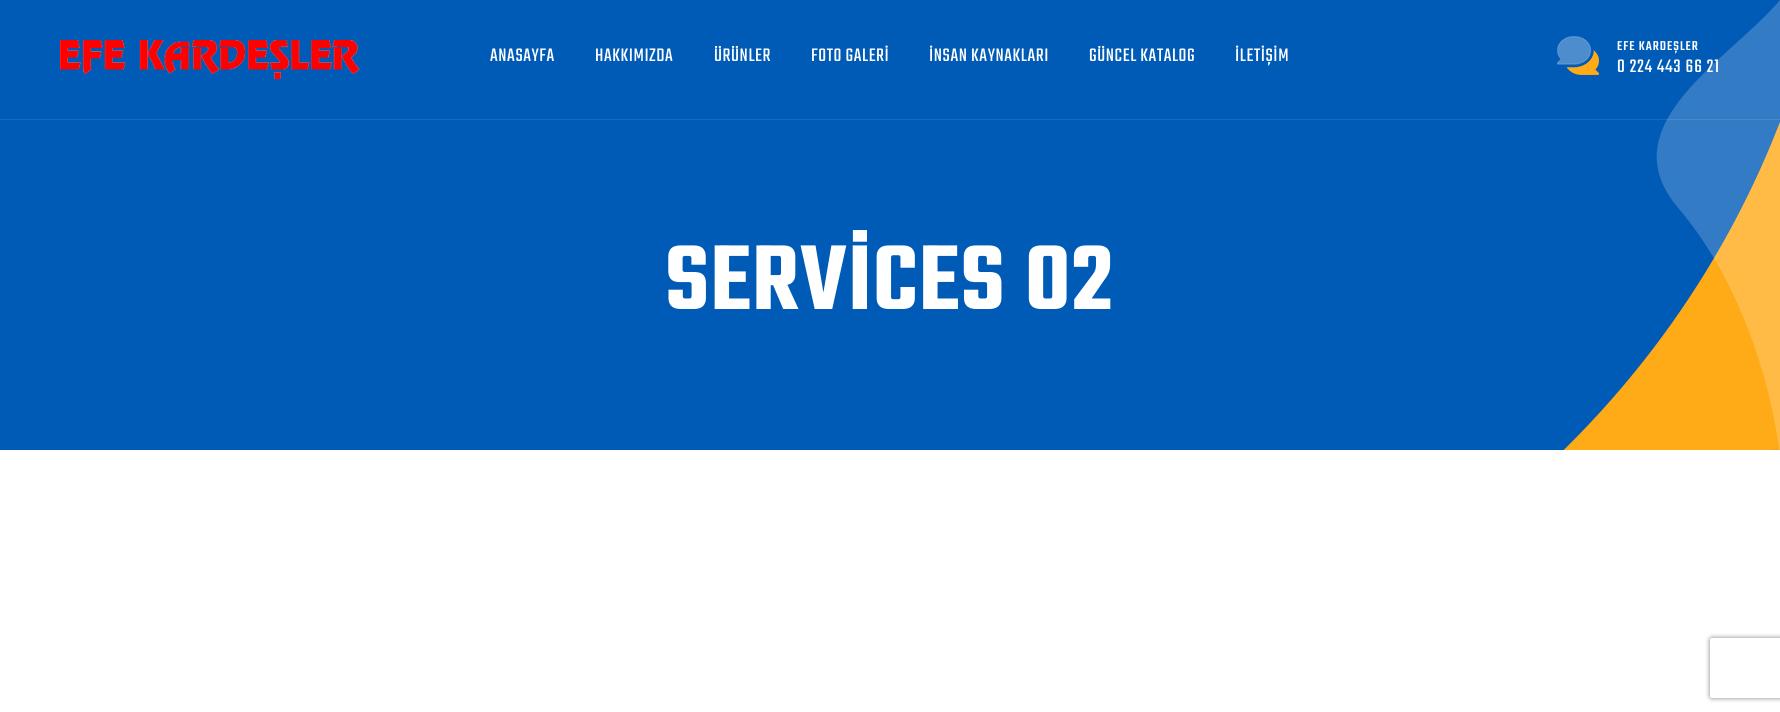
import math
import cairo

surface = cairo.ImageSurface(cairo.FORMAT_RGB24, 1780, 712)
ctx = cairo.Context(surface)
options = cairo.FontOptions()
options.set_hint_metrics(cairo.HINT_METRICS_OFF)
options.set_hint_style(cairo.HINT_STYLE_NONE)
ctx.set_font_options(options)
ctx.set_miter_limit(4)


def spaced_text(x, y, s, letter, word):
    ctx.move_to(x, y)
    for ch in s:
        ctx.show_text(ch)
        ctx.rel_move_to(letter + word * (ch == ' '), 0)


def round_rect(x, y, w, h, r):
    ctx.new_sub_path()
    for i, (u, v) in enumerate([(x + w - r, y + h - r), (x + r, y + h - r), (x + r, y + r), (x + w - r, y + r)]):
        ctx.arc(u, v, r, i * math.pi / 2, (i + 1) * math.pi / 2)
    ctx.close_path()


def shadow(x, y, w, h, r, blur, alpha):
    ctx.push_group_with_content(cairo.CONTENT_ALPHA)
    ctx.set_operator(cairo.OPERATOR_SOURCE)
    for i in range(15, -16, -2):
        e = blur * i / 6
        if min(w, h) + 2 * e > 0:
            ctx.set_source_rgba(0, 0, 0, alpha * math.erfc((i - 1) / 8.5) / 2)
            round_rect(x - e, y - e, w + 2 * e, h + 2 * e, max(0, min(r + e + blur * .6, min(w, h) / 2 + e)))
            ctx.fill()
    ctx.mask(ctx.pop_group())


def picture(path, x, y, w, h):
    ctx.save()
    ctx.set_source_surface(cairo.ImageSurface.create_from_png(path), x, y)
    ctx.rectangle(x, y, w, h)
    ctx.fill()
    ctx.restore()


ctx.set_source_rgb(1, 1, 1)
ctx.paint()
ctx.set_source_rgb(0, 0.357, 0.718)
ctx.rectangle(0, 0, 1780, 450)
ctx.fill()
picture("img4.png", 1563, 122, 217, 328)
picture("img3.png", 1656, 0, 124, 450)
ctx.set_source_rgba(1, 1, 1, 0.1)
ctx.rectangle(0, 119, 1780, 1)
ctx.fill()
picture("img1.png", 60, 40, 300, 39)
ctx.select_font_face("Teko")
ctx.set_font_size(20)
ctx.set_source_rgb(1, 1, 1)
spaced_text(490, 61, "ANASAYFA", 0.6, 0)
spaced_text(595, 61, "HAKKIMIZDA", 0.6, 0)
spaced_text(714, 61, "ÜRÜNLER", 0.6, 0)
spaced_text(811, 61, "FOTO GALERİ", 0.6, 0)
spaced_text(929, 61, "İNSAN KAYNAKLARI", 0.6, 0)
spaced_text(1089, 61, "GÜNCEL KATALOG", 0.6, 0)
spaced_text(1235, 61, "İLETİŞİM", 0.6, 0)
picture("img2.png", 1557, 36, 42, 39)
ctx.select_font_face("Teko Medium")
ctx.set_font_size(14)
spaced_text(1617, 50, "EFE KARDEŞLER", 1, 0)
ctx.select_font_face("Teko")
ctx.set_font_size(20)
spaced_text(1617, 72, "0 224 443 66 21", 1, 0)
ctx.select_font_face("Teko SemiBold")
ctx.set_font_size(100)
spaced_text(665, 309, "SERVİCES 02", 1, 0)
ctx.save()
ctx.set_fill_rule(cairo.FILL_RULE_EVEN_ODD)
ctx.new_path()
ctx.move_to(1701, 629)
ctx.line_to(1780, 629)
ctx.line_to(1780, 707)
ctx.line_to(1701, 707)
ctx.close_path()
ctx.move_to(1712, 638)
ctx.line_to(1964, 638)
ctx.curve_to(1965, 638, 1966, 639, 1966, 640)
ctx.line_to(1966, 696)
ctx.curve_to(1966, 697, 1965, 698, 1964, 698)
ctx.line_to(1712, 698)
ctx.curve_to(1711, 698, 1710, 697, 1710, 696)
ctx.line_to(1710, 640)
ctx.curve_to(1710, 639, 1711, 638, 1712, 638)
ctx.close_path()
ctx.clip()
ctx.set_source_rgb(0.502, 0.502, 0.502)
shadow(1710, 638, 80, 60, 2, 2.5, 1)
ctx.restore()
surface.write_to_png("page.png")
